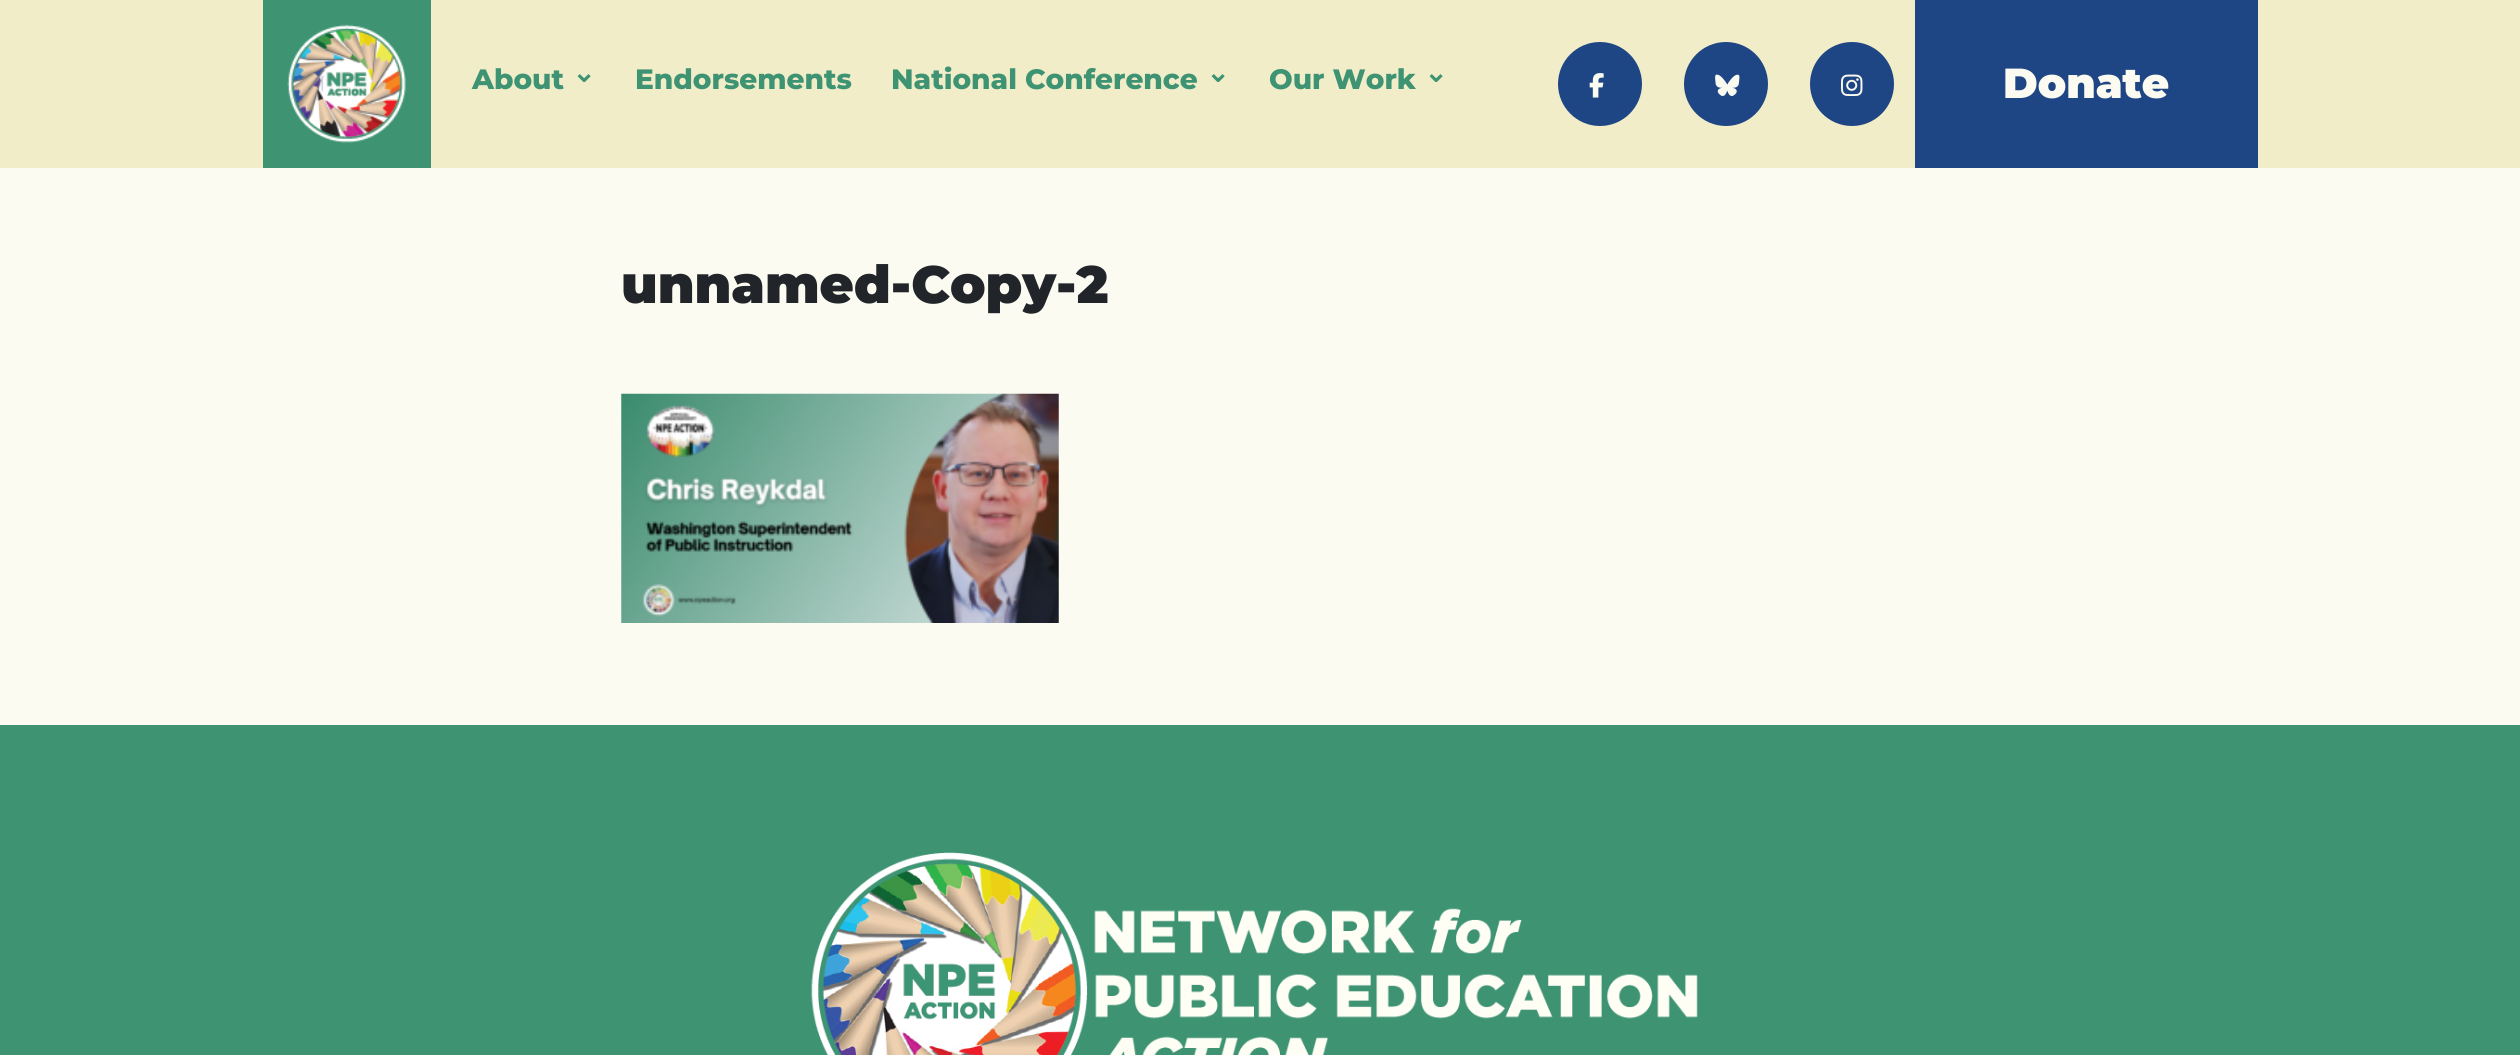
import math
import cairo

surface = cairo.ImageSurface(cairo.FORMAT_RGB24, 2520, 1055)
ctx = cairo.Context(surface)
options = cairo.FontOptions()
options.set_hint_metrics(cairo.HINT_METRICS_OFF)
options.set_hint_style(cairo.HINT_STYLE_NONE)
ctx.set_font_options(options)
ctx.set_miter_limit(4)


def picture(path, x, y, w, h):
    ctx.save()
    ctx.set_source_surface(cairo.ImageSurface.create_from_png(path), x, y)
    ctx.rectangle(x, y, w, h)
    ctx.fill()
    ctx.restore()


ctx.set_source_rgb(0.984, 0.984, 0.949)
ctx.paint()
ctx.set_source_rgb(0.949, 0.929, 0.788)
ctx.rectangle(0, 0, 2520, 168)
ctx.fill()
ctx.set_source_rgb(0.243, 0.576, 0.451)
ctx.rectangle(263, 0, 168, 168)
ctx.fill()
picture("img1.png", 287, 24, 119, 119)
ctx.select_font_face("Montserrat ExtraBold")
ctx.set_font_size(28)
ctx.move_to(472, 89)
ctx.show_text("About")
ctx.select_font_face("DejaVu Sans", cairo.FONT_SLANT_NORMAL, cairo.FONT_WEIGHT_BOLD)
ctx.move_to(572, 82)
ctx.show_text("⌄")
ctx.select_font_face("Montserrat ExtraBold")
ctx.move_to(635, 89)
ctx.show_text("Endorsements")
ctx.move_to(891, 89)
ctx.show_text("National Conference")
ctx.select_font_face("DejaVu Sans", cairo.FONT_SLANT_NORMAL, cairo.FONT_WEIGHT_BOLD)
ctx.move_to(1206, 82)
ctx.show_text("⌄")
ctx.select_font_face("Montserrat ExtraBold")
ctx.move_to(1269, 89)
ctx.show_text("Our Work")
ctx.select_font_face("DejaVu Sans", cairo.FONT_SLANT_NORMAL, cairo.FONT_WEIGHT_BOLD)
ctx.move_to(1424, 82)
ctx.show_text("⌄")
ctx.set_source_rgb(0.122, 0.275, 0.518)
ctx.new_path()
ctx.arc(1600, 84, 42, 0, 2 * math.pi)
ctx.fill()
picture("img2.png", 1589, 73, 15, 25)
ctx.arc(1726, 84, 42, 0, 2 * math.pi)
ctx.fill()
picture("img3.png", 1715, 74, 25, 22)
ctx.arc(1852, 84, 42, 0, 2 * math.pi)
ctx.fill()
picture("img4.png", 1841, 74, 22, 22)
ctx.rectangle(1915, 0, 343, 168)
ctx.fill()
ctx.select_font_face("Montserrat Black")
ctx.set_font_size(42)
ctx.set_source_rgb(0.984, 0.984, 0.949)
ctx.move_to(2003, 98)
ctx.show_text("Donate")
ctx.set_font_size(52.5)
ctx.set_source_rgb(0.129, 0.145, 0.161)
ctx.move_to(621, 303)
ctx.show_text("unnamed-Copy-2")
picture("img5.png", 621, 393, 438, 230)
ctx.set_source_rgb(0.243, 0.576, 0.451)
ctx.rectangle(0, 725, 2520, 330)
ctx.fill()
picture("img6.png", 811, 852, 887, 203)
surface.write_to_png("page.png")
